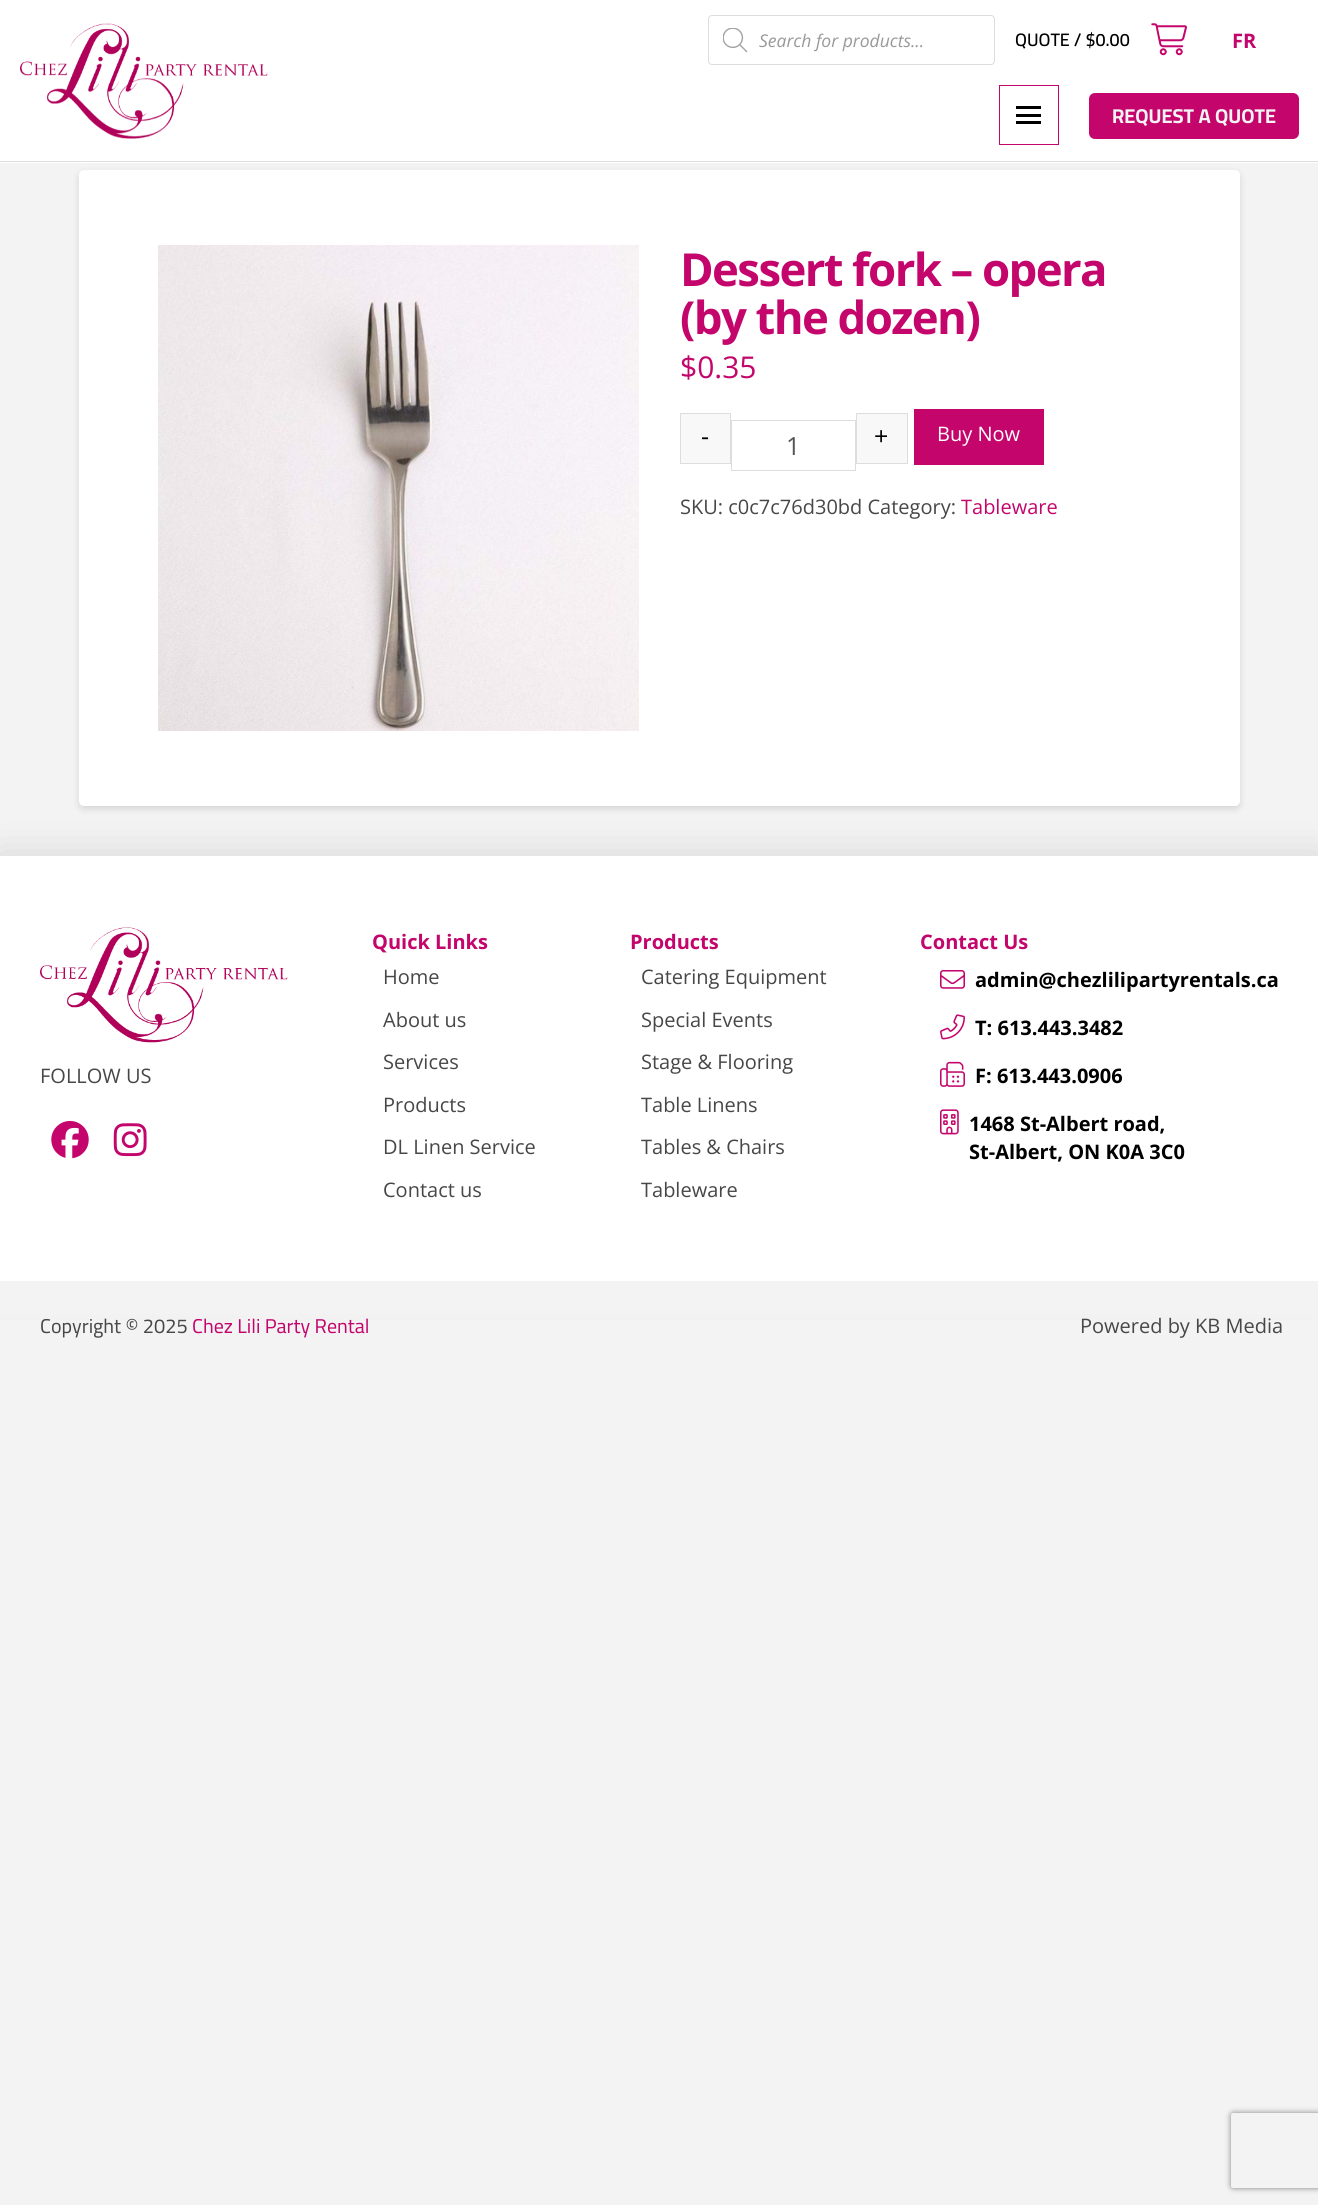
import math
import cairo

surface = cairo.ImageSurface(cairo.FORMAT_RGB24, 1318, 2205)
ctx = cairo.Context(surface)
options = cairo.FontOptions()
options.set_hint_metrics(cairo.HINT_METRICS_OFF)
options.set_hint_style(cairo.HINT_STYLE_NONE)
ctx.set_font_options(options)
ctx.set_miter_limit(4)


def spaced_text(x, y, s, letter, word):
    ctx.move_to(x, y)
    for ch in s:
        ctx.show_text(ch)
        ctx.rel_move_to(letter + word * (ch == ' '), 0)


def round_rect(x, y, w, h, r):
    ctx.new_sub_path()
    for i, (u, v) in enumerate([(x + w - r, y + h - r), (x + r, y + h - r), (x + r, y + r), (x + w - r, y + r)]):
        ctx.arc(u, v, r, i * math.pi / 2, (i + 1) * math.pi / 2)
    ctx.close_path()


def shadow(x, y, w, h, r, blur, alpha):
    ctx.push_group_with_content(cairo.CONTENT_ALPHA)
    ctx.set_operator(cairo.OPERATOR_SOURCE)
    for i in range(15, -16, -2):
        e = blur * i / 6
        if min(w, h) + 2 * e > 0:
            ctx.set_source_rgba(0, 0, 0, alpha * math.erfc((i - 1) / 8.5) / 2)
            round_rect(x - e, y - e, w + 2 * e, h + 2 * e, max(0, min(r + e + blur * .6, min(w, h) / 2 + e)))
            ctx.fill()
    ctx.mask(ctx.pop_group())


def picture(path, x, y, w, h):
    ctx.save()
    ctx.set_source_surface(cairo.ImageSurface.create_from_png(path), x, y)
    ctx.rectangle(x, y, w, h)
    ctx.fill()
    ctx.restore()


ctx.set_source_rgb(0.953, 0.953, 0.953)
ctx.paint()
ctx.set_source_rgb(0, 0, 0)
shadow(79, 173, 1161, 636, 5, 3.5, 0.13)
ctx.set_source_rgb(1, 1, 1)
ctx.rectangle(0, 0, 1318, 163)
ctx.fill()
round_rect(708.5, 15.5, 286, 49, 3.5)
ctx.set_source_rgb(0.867, 0.867, 0.867)
ctx.set_line_width(1)
ctx.stroke()
picture("img1.png", 723, 28, 25, 25)
ctx.select_font_face("Open Sans", cairo.FONT_SLANT_ITALIC)
ctx.set_font_size(17.5)
ctx.set_source_rgb(0.6, 0.6, 0.6)
ctx.move_to(759, 47)
ctx.show_text("Search for products...")
ctx.select_font_face("Cairo SemiBold")
ctx.set_font_size(18)
ctx.set_source_rgb(0, 0, 0)
ctx.move_to(1015, 46)
ctx.show_text("QUOTE / $0.00")
picture("img2.png", 1151, 23, 36, 33)
ctx.select_font_face("Open Sans", cairo.FONT_SLANT_NORMAL, cairo.FONT_WEIGHT_BOLD)
ctx.set_font_size(20)
ctx.set_source_rgb(0.765, 0.02, 0.424)
ctx.move_to(1232, 48)
ctx.show_text("FR")
ctx.set_source_rgb(0.867, 0.867, 0.867)
ctx.rectangle(0, 161, 1318, 1)
ctx.fill()
picture("img3.png", 20, 23, 248, 116)
ctx.rectangle(999.5, 85.5, 59, 59)
ctx.set_source_rgb(0.765, 0.02, 0.424)
ctx.stroke()
ctx.set_source_rgb(0, 0, 0)
ctx.rectangle(1016, 106, 25, 3)
ctx.fill()
ctx.rectangle(1016, 114, 25, 3)
ctx.fill()
ctx.rectangle(1016, 121, 25, 3)
ctx.fill()
ctx.set_source_rgb(0.765, 0.02, 0.424)
round_rect(1089, 93, 210, 46, 6)
ctx.fill()
ctx.select_font_face("Cairo", cairo.FONT_SLANT_NORMAL, cairo.FONT_WEIGHT_BOLD)
ctx.set_source_rgb(0.953, 0.953, 0.953)
ctx.move_to(1112, 123)
ctx.show_text("REQUEST A QUOTE")
ctx.set_source_rgb(1, 1, 1)
round_rect(79, 170, 1161, 636, 5)
ctx.fill()
picture("img4.png", 158, 245, 481, 486)
ctx.select_font_face("Open Sans", cairo.FONT_SLANT_NORMAL, cairo.FONT_WEIGHT_BOLD)
ctx.set_font_size(45.5)
ctx.set_source_rgb(0.765, 0.02, 0.424)
spaced_text(680, 286, "Dessert fork – opera", -1.6, 0)
spaced_text(680, 334, "(by the dozen)", -1.6, 0)
ctx.select_font_face("Open Sans")
ctx.set_font_size(30)
ctx.move_to(680, 378)
ctx.show_text("$0.35")
ctx.set_source_rgb(0.969, 0.969, 0.969)
ctx.rectangle(680.5, 413.5, 50, 50)
ctx.fill_preserve()
ctx.set_source_rgb(0.867, 0.867, 0.867)
ctx.stroke()
ctx.set_font_size(25)
ctx.set_source_rgb(0, 0, 0)
ctx.move_to(701, 445)
ctx.show_text("-")
ctx.rectangle(731.5, 420.5, 124, 50)
ctx.set_source_rgb(0.867, 0.867, 0.867)
ctx.stroke()
ctx.set_source_rgb(0.333, 0.333, 0.333)
ctx.move_to(786, 455)
ctx.show_text("1")
ctx.set_source_rgb(0.969, 0.969, 0.969)
ctx.rectangle(856.5, 413.5, 51, 50)
ctx.fill_preserve()
ctx.set_source_rgb(0.867, 0.867, 0.867)
ctx.stroke()
ctx.set_source_rgb(0, 0, 0)
ctx.move_to(874, 445)
ctx.show_text("+")
ctx.set_source_rgb(0.765, 0.02, 0.424)
ctx.rectangle(914, 409, 130, 56)
ctx.fill()
ctx.set_font_size(20)
ctx.set_source_rgb(1, 1, 1)
ctx.move_to(937, 441)
ctx.show_text("Buy Now")
ctx.set_source_rgb(0.278, 0.278, 0.278)
ctx.move_to(680, 514)
ctx.show_text("SKU: c0c7c76d30bd Category:")
ctx.set_source_rgb(0.765, 0.02, 0.424)
ctx.move_to(961, 514)
ctx.show_text("Tableware")
ctx.set_source_rgb(0, 0, 0)
shadow(0, 859, 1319, 425, 0, 20, 0.15)
ctx.set_source_rgb(1, 1, 1)
ctx.rectangle(0, 856, 1318, 425)
ctx.fill()
picture("img5.png", 40, 927, 248, 116)
ctx.set_source_rgb(0.278, 0.278, 0.278)
ctx.move_to(40, 1083)
ctx.show_text("FOLLOW US")
picture("img6.png", 51, 1120, 38, 39)
picture("img7.png", 113, 1123, 34, 34)
ctx.select_font_face("Open Sans", cairo.FONT_SLANT_NORMAL, cairo.FONT_WEIGHT_BOLD)
ctx.set_source_rgb(0.765, 0.02, 0.424)
ctx.move_to(372, 949)
ctx.show_text("Quick Links")
ctx.select_font_face("Open Sans")
ctx.set_source_rgb(0.278, 0.278, 0.278)
ctx.move_to(383, 984)
ctx.show_text("Home")
ctx.move_to(383, 1027)
ctx.show_text("About us")
ctx.move_to(383, 1069)
ctx.show_text("Services")
ctx.move_to(383, 1112)
ctx.show_text("Products")
ctx.move_to(383, 1154)
ctx.show_text("DL Linen Service")
ctx.move_to(383, 1197)
ctx.show_text("Contact us")
ctx.select_font_face("Open Sans", cairo.FONT_SLANT_NORMAL, cairo.FONT_WEIGHT_BOLD)
ctx.set_source_rgb(0.765, 0.02, 0.424)
ctx.move_to(630, 949)
ctx.show_text("Products")
ctx.select_font_face("Open Sans")
ctx.set_source_rgb(0.278, 0.278, 0.278)
ctx.move_to(641, 984)
ctx.show_text("Catering Equipment")
ctx.move_to(641, 1027)
ctx.show_text("Special Events")
ctx.move_to(641, 1069)
ctx.show_text("Stage & Flooring")
ctx.move_to(641, 1112)
ctx.show_text("Table Linens")
ctx.move_to(641, 1154)
ctx.show_text("Tables & Chairs")
ctx.move_to(641, 1197)
ctx.show_text("Tableware")
ctx.select_font_face("Open Sans", cairo.FONT_SLANT_NORMAL, cairo.FONT_WEIGHT_BOLD)
ctx.set_source_rgb(0.765, 0.02, 0.424)
ctx.move_to(920, 949)
ctx.show_text("Contact Us")
picture("img8.png", 940, 970, 25, 19)
ctx.set_source_rgb(0, 0, 0)
ctx.move_to(975, 987)
ctx.show_text("admin@chezlilipartyrentals.ca")
picture("img9.png", 940, 1014, 25, 26)
ctx.move_to(975, 1035)
ctx.show_text("T: 613.443.3482")
picture("img10.png", 940, 1061, 25, 26)
ctx.move_to(975, 1083)
ctx.show_text("F: 613.443.0906")
picture("img11.png", 940, 1109, 19, 26)
ctx.move_to(969, 1131)
ctx.show_text("1468 St-Albert road,")
ctx.move_to(969, 1159)
ctx.show_text("St-Albert, ON K0A 3C0")
ctx.set_source_rgb(0.953, 0.953, 0.953)
ctx.rectangle(0, 1281, 1318, 33)
ctx.fill()
ctx.select_font_face("Cairo")
ctx.set_source_rgb(0.278, 0.278, 0.278)
ctx.move_to(40, 1333)
ctx.show_text("Copyright © 2025")
ctx.set_source_rgb(0.765, 0.02, 0.424)
ctx.move_to(192, 1333)
ctx.show_text("Chez Lili Party Rental")
ctx.select_font_face("Open Sans")
ctx.set_source_rgb(0.278, 0.278, 0.278)
ctx.move_to(1080, 1333)
ctx.show_text("Powered by KB Media")
ctx.save()
ctx.set_fill_rule(cairo.FILL_RULE_EVEN_ODD)
ctx.new_path()
ctx.move_to(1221, 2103)
ctx.line_to(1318, 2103)
ctx.line_to(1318, 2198)
ctx.line_to(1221, 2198)
ctx.close_path()
ctx.move_to(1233.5, 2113)
ctx.line_to(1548.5, 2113)
ctx.curve_to(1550, 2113, 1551, 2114, 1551, 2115.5)
ctx.line_to(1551, 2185.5)
ctx.curve_to(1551, 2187, 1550, 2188, 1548.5, 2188)
ctx.line_to(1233.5, 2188)
ctx.curve_to(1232, 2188, 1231, 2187, 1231, 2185.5)
ctx.line_to(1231, 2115.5)
ctx.curve_to(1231, 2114, 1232, 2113, 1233.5, 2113)
ctx.close_path()
ctx.clip()
ctx.set_source_rgb(0.502, 0.502, 0.502)
shadow(1231, 2113, 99, 75, 2.5, 3, 1)
ctx.restore()
surface.write_to_png("page.png")
